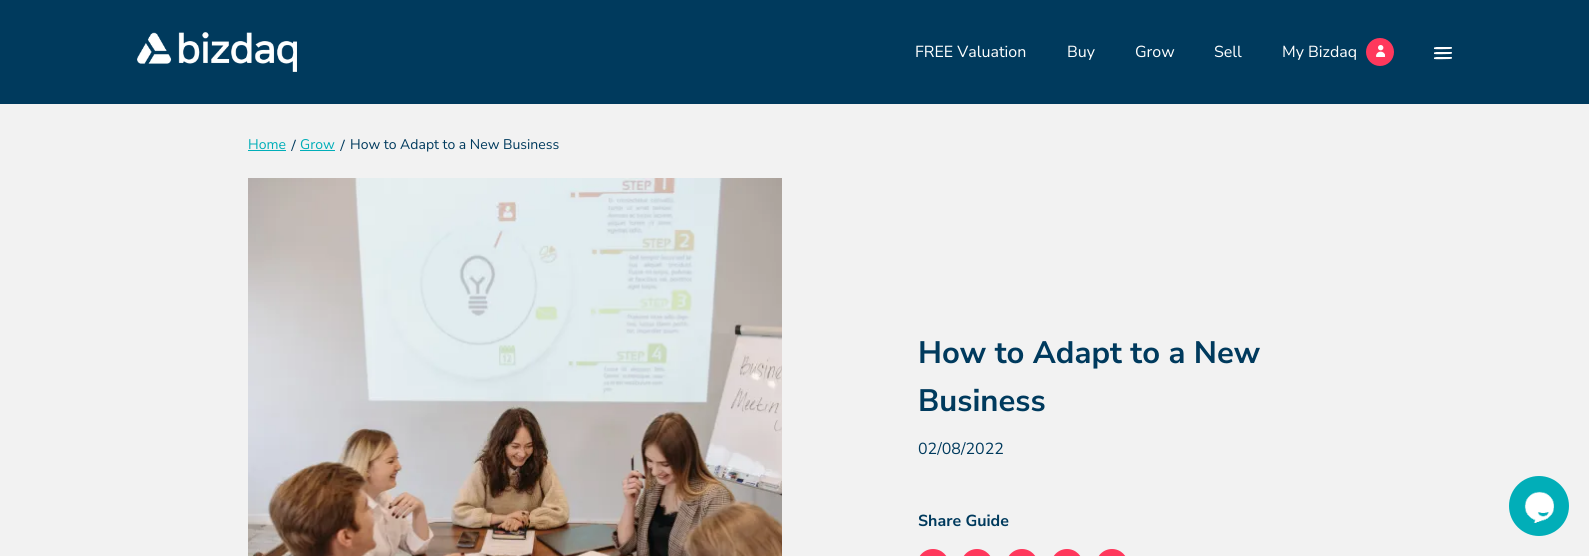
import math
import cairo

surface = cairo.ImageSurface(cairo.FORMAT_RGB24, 1589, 556)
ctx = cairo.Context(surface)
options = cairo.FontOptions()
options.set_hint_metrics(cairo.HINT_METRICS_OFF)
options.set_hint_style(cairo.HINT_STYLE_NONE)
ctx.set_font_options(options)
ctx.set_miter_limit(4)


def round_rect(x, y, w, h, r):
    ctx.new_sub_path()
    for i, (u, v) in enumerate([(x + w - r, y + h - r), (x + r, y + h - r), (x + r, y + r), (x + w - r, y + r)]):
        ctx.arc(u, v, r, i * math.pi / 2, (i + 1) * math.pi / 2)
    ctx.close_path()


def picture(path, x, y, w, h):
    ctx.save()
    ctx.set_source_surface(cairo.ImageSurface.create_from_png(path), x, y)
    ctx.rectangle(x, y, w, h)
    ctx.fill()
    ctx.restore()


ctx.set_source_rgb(0.949, 0.949, 0.949)
ctx.paint()
ctx.set_source_rgb(0, 0.227, 0.365)
ctx.rectangle(0, 0, 1589, 104)
ctx.fill()
picture("img1.png", 137, 32, 160, 40)
ctx.select_font_face("Nunito Sans")
ctx.set_font_size(16)
ctx.set_source_rgb(1, 1, 1)
ctx.move_to(915, 57)
ctx.show_text("FREE Valuation")
ctx.move_to(1067, 57)
ctx.show_text("Buy")
ctx.move_to(1135, 57)
ctx.show_text("Grow")
ctx.move_to(1214, 57)
ctx.show_text("Sell")
ctx.move_to(1282, 57)
ctx.show_text("My Bizdaq")
ctx.set_source_rgb(1, 0.22, 0.361)
ctx.new_path()
ctx.arc(1380, 52, 14, 0, 2 * math.pi)
ctx.fill()
picture("img2.png", 1376, 45, 9, 12)
ctx.set_source_rgb(1, 1, 1)
ctx.new_path()
ctx.move_to(1436.5, 47)
ctx.line_to(1450.5, 47)
ctx.curve_to(1452, 47, 1452, 47, 1452, 48.5)
ctx.line_to(1450, 49)
ctx.curve_to(1448, 49, 1435.5, 49.5, 1434, 49)
ctx.line_to(1434, 47.5)
ctx.close_path()
ctx.move_to(1436.5, 52)
ctx.line_to(1450.5, 52)
ctx.curve_to(1452, 52, 1452, 52, 1452, 53.5)
ctx.line_to(1450, 54)
ctx.curve_to(1448, 54, 1435.5, 54.5, 1434, 54)
ctx.line_to(1434, 52.5)
ctx.close_path()
ctx.move_to(1436.5, 57)
ctx.line_to(1450.5, 57)
ctx.curve_to(1452, 57, 1452, 57, 1452, 58.5)
ctx.line_to(1450, 59)
ctx.curve_to(1448, 59, 1435.5, 59.5, 1434, 59)
ctx.line_to(1434, 57.5)
ctx.close_path()
ctx.fill()
ctx.set_font_size(14)
ctx.set_source_rgb(0, 0.682, 0.722)
ctx.move_to(248, 149)
ctx.show_text("Home")
ctx.rectangle(248, 150, 38, 1)
ctx.fill()
ctx.set_source_rgb(0, 0.227, 0.365)
ctx.new_path()
ctx.move_to(295, 139.5)
ctx.line_to(296, 140)
ctx.line_to(292, 151)
ctx.line_to(291, 151)
ctx.close_path()
ctx.fill()
ctx.set_source_rgb(0, 0.682, 0.722)
ctx.move_to(300, 149)
ctx.show_text("Grow")
ctx.rectangle(300, 150, 35, 1)
ctx.fill()
ctx.set_source_rgb(0, 0.227, 0.365)
ctx.new_path()
ctx.move_to(344, 139.5)
ctx.line_to(345, 140)
ctx.line_to(341, 151)
ctx.line_to(340, 151)
ctx.close_path()
ctx.fill()
ctx.move_to(350, 149)
ctx.show_text("How to Adapt to a New Business")
picture("img3.png", 248, 178, 534, 378)
ctx.select_font_face("Nunito Sans", cairo.FONT_SLANT_NORMAL, cairo.FONT_WEIGHT_BOLD)
ctx.set_font_size(31)
ctx.move_to(918, 363)
ctx.show_text("How to Adapt to a New")
ctx.move_to(918, 411)
ctx.show_text("Business")
ctx.select_font_face("Nunito Sans")
ctx.set_font_size(16)
ctx.move_to(918, 454)
ctx.show_text("02/08/2022")
ctx.select_font_face("Nunito Sans", cairo.FONT_SLANT_NORMAL, cairo.FONT_WEIGHT_BOLD)
ctx.move_to(918, 526)
ctx.show_text("Share Guide")
ctx.set_source_rgb(1, 0.22, 0.361)
round_rect(917, 549, 32, 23, 16)
ctx.fill()
round_rect(961, 549, 32, 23, 16)
ctx.fill()
round_rect(1006, 549, 32, 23, 16)
ctx.fill()
round_rect(1051, 549, 32, 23, 16)
ctx.fill()
round_rect(1096, 549, 32, 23, 16)
ctx.fill()
ctx.set_source_rgb(0.004, 0.682, 0.722)
ctx.arc(1539, 506, 30, 0, 2 * math.pi)
ctx.fill()
picture("img4.png", 1524, 491, 30, 32)
surface.write_to_png("page.png")
